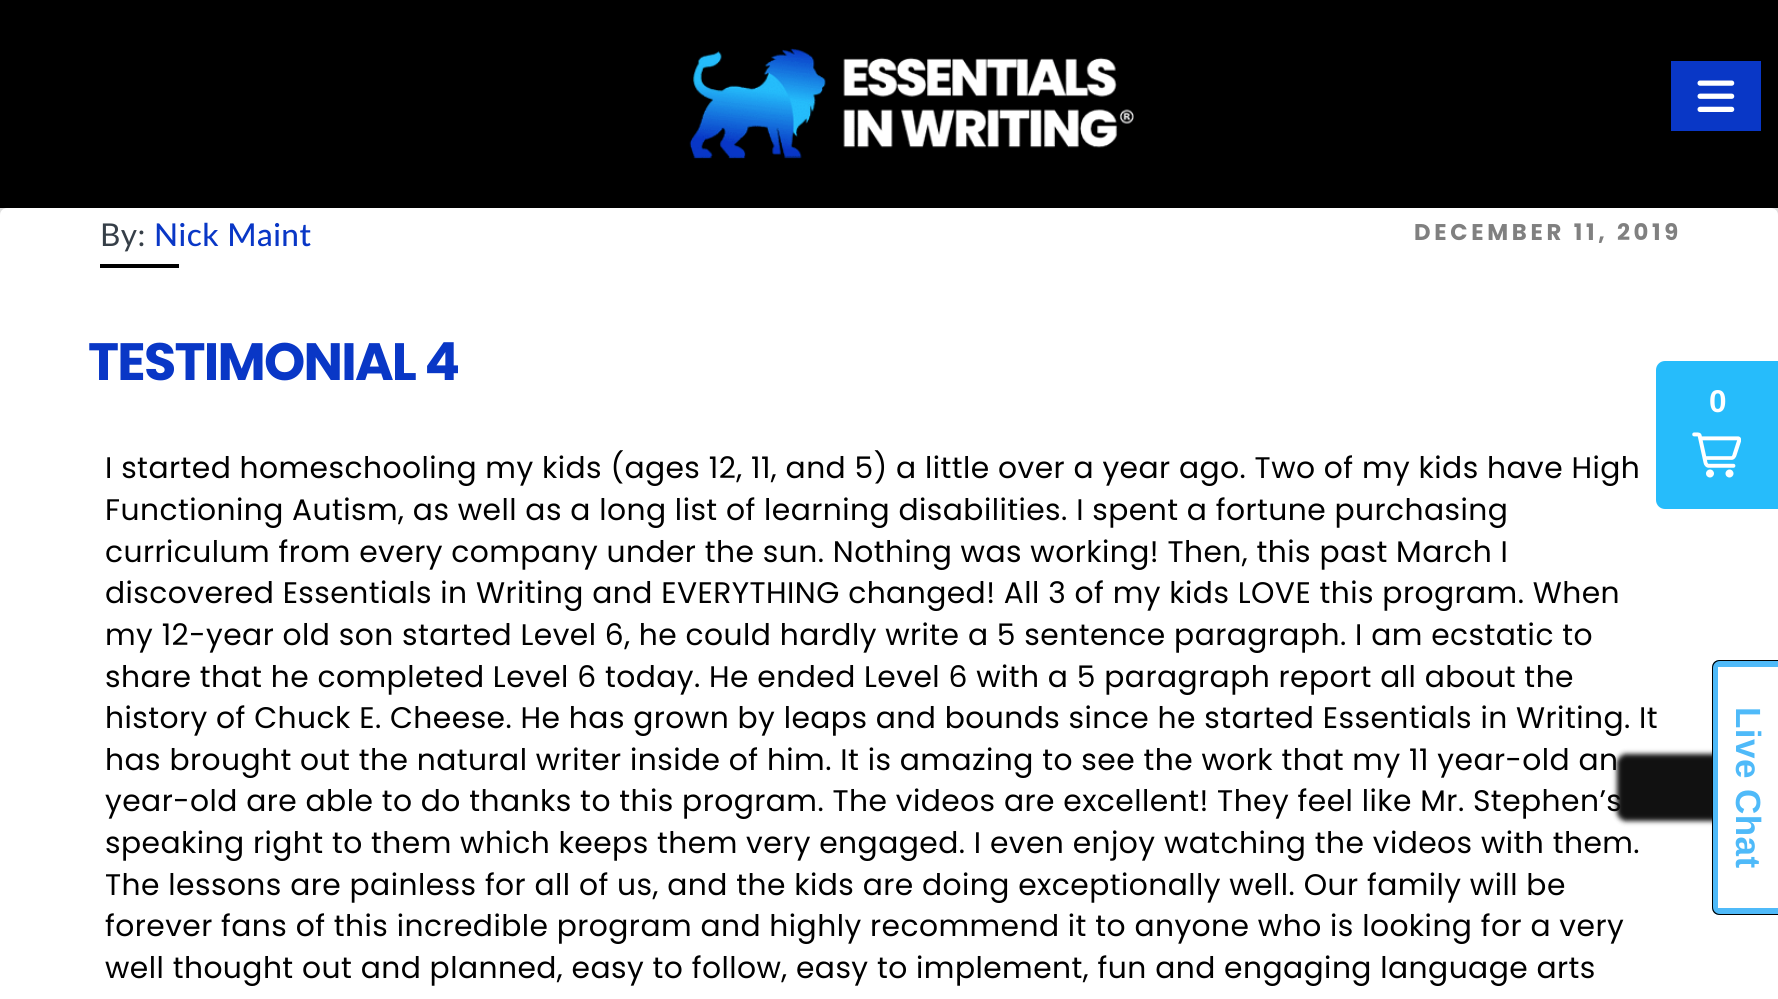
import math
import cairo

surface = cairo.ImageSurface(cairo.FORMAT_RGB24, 1778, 999)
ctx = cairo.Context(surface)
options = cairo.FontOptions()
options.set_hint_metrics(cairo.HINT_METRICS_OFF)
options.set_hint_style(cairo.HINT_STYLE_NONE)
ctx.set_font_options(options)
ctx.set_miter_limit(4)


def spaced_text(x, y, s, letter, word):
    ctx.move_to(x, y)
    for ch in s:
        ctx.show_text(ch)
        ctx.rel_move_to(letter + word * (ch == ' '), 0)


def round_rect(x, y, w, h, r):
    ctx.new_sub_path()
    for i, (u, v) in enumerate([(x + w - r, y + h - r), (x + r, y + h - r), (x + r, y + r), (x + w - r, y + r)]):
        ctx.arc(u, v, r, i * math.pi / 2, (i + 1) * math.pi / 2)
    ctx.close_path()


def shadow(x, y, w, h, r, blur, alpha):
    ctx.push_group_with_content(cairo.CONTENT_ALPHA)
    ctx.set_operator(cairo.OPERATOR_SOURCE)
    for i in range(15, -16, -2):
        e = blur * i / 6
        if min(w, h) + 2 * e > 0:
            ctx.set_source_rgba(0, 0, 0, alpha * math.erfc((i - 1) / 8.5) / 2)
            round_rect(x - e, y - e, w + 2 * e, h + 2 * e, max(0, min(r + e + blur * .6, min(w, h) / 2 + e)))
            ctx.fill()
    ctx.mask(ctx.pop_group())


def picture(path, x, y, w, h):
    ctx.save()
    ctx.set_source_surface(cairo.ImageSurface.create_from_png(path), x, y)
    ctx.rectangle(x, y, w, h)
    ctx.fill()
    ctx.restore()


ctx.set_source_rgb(1, 1, 1)
ctx.paint()
ctx.set_source_rgb(0, 0, 0)
shadow(0, 26, 1778, 209, 0, 24, 0.25)
ctx.set_source_rgb(0, 0, 0)
ctx.rectangle(0, 0, 1778, 208)
ctx.fill()
picture("img1.png", 689, 48, 445, 111)
ctx.set_source_rgb(0.039, 0.216, 0.776)
ctx.rectangle(1671, 61, 90, 70)
ctx.fill()
picture("img2.png", 1697, 80, 38, 32)
ctx.set_source_rgb(1, 1, 1)
round_rect(0, 208, 1778, 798, 7)
ctx.fill()
ctx.select_font_face("Lato")
ctx.set_font_size(31.5)
ctx.set_source_rgb(0.212, 0.247, 0.282)
spaced_text(100, 246, "By:", 0.44, 0)
ctx.select_font_face("Lato Medium")
ctx.set_source_rgb(0.039, 0.216, 0.776)
spaced_text(154, 246, "Nick Maint", 0.44, 0)
ctx.set_source_rgb(0, 0, 0)
ctx.rectangle(100, 264, 79, 4)
ctx.fill()
ctx.select_font_face("Poppins", cairo.FONT_SLANT_NORMAL, cairo.FONT_WEIGHT_BOLD)
ctx.set_font_size(22.75)
ctx.set_source_rgb(0.502, 0.502, 0.502)
spaced_text(1414, 240, "DECEMBER 11, 2019", 3.7, 0)
ctx.set_font_size(52.5)
ctx.set_source_rgb(0.039, 0.216, 0.776)
spaced_text(88, 380, "TESTIMONIAL 4", -1.75, 0)
ctx.select_font_face("Poppins")
ctx.set_font_size(29.75)
ctx.set_source_rgb(0, 0, 0)
spaced_text(105, 478, "I started homeschooling my kids (ages 12, 11, and 5) a little over a year ago. Two of my kids have High", 0.44, 0)
spaced_text(105, 520, "Functioning Autism, as well as a long list of learning disabilities. I spent a fortune purchasing", 0.44, 0)
spaced_text(105, 562, "curriculum from every company under the sun. Nothing was working! Then, this past March I", 0.44, 0)
spaced_text(105, 603, "discovered Essentials in Writing and EVERYTHING changed! All 3 of my kids LOVE this program. When", 0.44, 0)
spaced_text(105, 645, "my 12-year old son started Level 6, he could hardly write a 5 sentence paragraph. I am ecstatic to", 0.44, 0)
spaced_text(105, 687, "share that he completed Level 6 today. He ended Level 6 with a 5 paragraph report all about the", 0.44, 0)
spaced_text(105, 728, "history of Chuck E. Cheese. He has grown by leaps and bounds since he started Essentials in Writing. It", 0.44, 0)
spaced_text(105, 770, "has brought out the natural writer inside of him. It is amazing to see the work that my 11 year-old an", 0.44, 0)
spaced_text(105, 811, "year-old are able to do thanks to this program. The videos are excellent! They feel like Mr. Stephen’s", 0.44, 0)
spaced_text(105, 853, "speaking right to them which keeps them very engaged. I even enjoy watching the videos with them.", 0.44, 0)
spaced_text(105, 895, "The lessons are painless for all of us, and the kids are doing exceptionally well. Our family will be", 0.44, 0)
spaced_text(105, 936, "forever fans of this incredible program and highly recommend it to anyone who is looking for a very", 0.44, 0)
spaced_text(105, 978, "well thought out and planned, easy to follow, easy to implement, fun and engaging language arts", 0.44, 0)
ctx.set_source_rgb(0.149, 0.737, 0.984)
ctx.new_path()
ctx.move_to(1665, 361)
ctx.line_to(1778, 361)
ctx.line_to(1778, 509)
ctx.line_to(1665, 509)
ctx.curve_to(1660, 509, 1656, 505, 1656, 500)
ctx.line_to(1656, 370)
ctx.curve_to(1656, 365, 1660, 361, 1665, 361)
ctx.close_path()
ctx.fill()
ctx.select_font_face("Liberation Sans", cairo.FONT_SLANT_NORMAL, cairo.FONT_WEIGHT_BOLD)
ctx.set_font_size(31.5)
ctx.set_source_rgb(1, 1, 1)
ctx.move_to(1709, 412)
ctx.show_text("0")
picture("img3.png", 1692, 432, 49, 46)
ctx.set_source_rgb(0.067, 0.067, 0.067)
shadow(1617, 754, 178, 67, 9, 2.5, 1)
ctx.set_source_rgb(0.31, 0.729, 0.976)
ctx.new_path()
ctx.move_to(1778, 660)
ctx.line_to(1778, 915)
ctx.line_to(1720, 915)
ctx.curve_to(1715, 915, 1712, 912, 1712, 907)
ctx.line_to(1712, 668)
ctx.curve_to(1712, 663, 1715, 660, 1720, 660)
ctx.close_path()
ctx.fill()
ctx.set_source_rgb(0, 0, 0)
ctx.set_fill_rule(cairo.FILL_RULE_EVEN_ODD)
ctx.new_path()
ctx.move_to(1778, 660)
ctx.line_to(1778, 915)
ctx.line_to(1720, 915)
ctx.curve_to(1715, 915, 1712, 912, 1712, 907)
ctx.line_to(1712, 668)
ctx.curve_to(1712, 663, 1715, 660, 1720, 660)
ctx.close_path()
ctx.move_to(1778, 661)
ctx.line_to(1778, 914)
ctx.line_to(1720, 914)
ctx.curve_to(1716, 914, 1713, 911, 1713, 907)
ctx.line_to(1713, 668)
ctx.curve_to(1713, 664, 1716, 661, 1720, 661)
ctx.close_path()
ctx.fill()
ctx.set_source_rgb(1, 1, 1)
ctx.rectangle(1718, 667, 60, 241)
ctx.fill()
ctx.set_font_size(35)
ctx.set_source_rgb(0.31, 0.729, 0.976)
ctx.save()
ctx.translate(1736, 707)
ctx.rotate(90 * math.pi / 180)
spaced_text(0, 0, "Live Chat", 0.44, 0)
ctx.restore()
surface.write_to_png("page.png")
